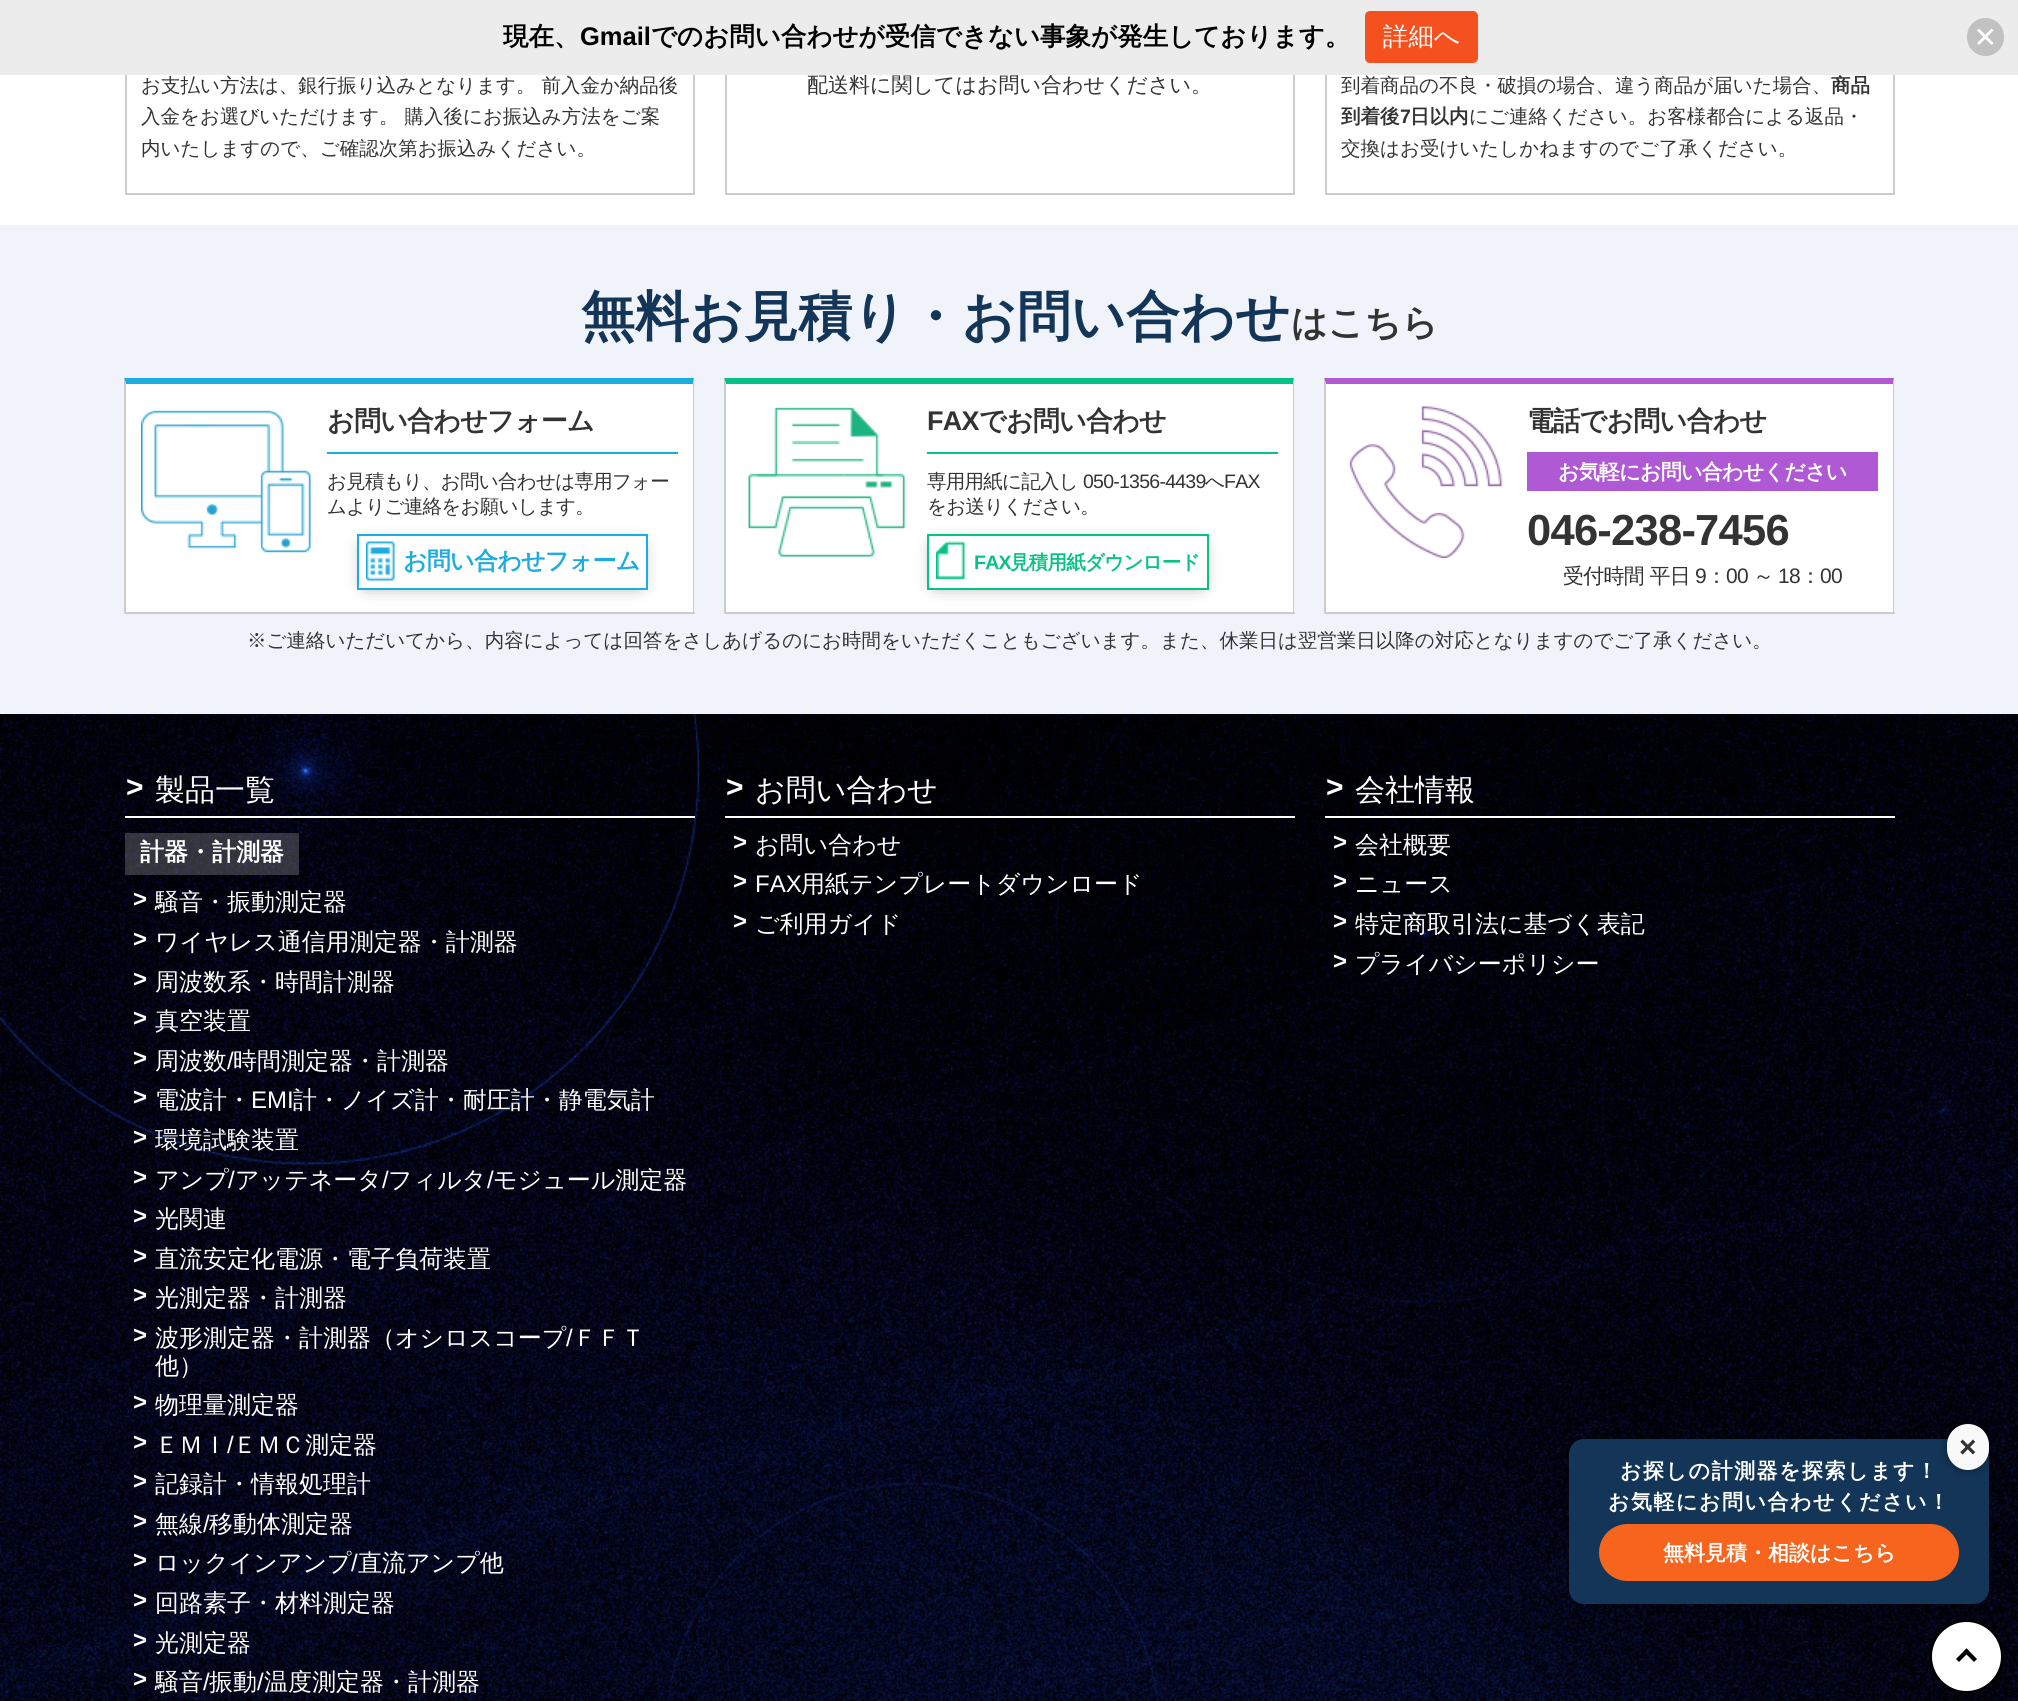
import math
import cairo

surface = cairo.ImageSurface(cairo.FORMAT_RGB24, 2018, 1701)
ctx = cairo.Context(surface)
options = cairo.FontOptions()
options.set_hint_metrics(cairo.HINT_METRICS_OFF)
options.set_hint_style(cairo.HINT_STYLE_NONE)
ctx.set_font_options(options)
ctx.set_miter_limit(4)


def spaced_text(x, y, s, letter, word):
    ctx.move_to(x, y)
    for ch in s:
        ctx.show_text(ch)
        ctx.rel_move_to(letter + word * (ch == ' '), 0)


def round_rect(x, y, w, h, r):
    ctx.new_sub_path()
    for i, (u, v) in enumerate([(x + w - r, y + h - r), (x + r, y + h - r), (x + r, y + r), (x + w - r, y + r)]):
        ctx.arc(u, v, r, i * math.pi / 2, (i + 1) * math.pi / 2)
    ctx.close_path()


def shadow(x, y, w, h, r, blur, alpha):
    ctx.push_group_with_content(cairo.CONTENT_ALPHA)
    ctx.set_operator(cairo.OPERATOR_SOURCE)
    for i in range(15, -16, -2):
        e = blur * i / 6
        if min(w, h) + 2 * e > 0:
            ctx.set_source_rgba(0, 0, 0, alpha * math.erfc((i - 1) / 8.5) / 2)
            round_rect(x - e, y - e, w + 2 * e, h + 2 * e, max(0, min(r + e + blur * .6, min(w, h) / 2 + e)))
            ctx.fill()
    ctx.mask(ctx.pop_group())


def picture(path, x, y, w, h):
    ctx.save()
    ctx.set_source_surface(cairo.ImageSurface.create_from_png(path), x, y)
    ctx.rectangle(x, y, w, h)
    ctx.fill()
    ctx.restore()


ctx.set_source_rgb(1, 1, 1)
ctx.paint()
ctx.rectangle(126, -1, 568, 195)
ctx.set_source_rgb(0.8, 0.8, 0.8)
ctx.stroke()
ctx.rectangle(726, -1, 568, 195)
ctx.stroke()
ctx.select_font_face("WenQuanYi Zen Hei Medium")
ctx.set_font_size(21)
ctx.set_source_rgb(0.2, 0.2, 0.2)
ctx.move_to(807, 92)
ctx.show_text("配送料に関してはお問い合わせください。")
ctx.rectangle(1326, -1, 568, 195)
ctx.set_source_rgb(0.8, 0.8, 0.8)
ctx.stroke()
ctx.set_source_rgb(0.922, 0.922, 0.922)
ctx.rectangle(0, 0, 2018, 75)
ctx.fill()
ctx.select_font_face("WenQuanYi Zen Hei", cairo.FONT_SLANT_NORMAL, cairo.FONT_WEIGHT_BOLD)
ctx.set_font_size(25.5)
ctx.set_source_rgb(0, 0, 0)
ctx.move_to(503, 45)
ctx.show_text("現在、")
ctx.select_font_face("Liberation Sans", cairo.FONT_SLANT_NORMAL, cairo.FONT_WEIGHT_BOLD)
ctx.move_to(580, 45)
ctx.show_text("Gmail")
ctx.select_font_face("WenQuanYi Zen Hei", cairo.FONT_SLANT_NORMAL, cairo.FONT_WEIGHT_BOLD)
ctx.move_to(651, 45)
ctx.show_text("でのお問い合わせが受信できない事象が発生しております。")
ctx.set_source_rgb(0.957, 0.318, 0.118)
round_rect(1365, 11, 113, 52, 5)
ctx.fill()
ctx.select_font_face("WenQuanYi Zen Hei Medium")
ctx.set_source_rgb(1, 1, 1)
ctx.move_to(1383, 45)
ctx.show_text("詳細へ")
ctx.set_source_rgb(0.757, 0.757, 0.757)
round_rect(1967, 18, 37, 38, 18.5)
ctx.fill()
picture("img1.png", 1977, 28, 17, 17)
ctx.set_font_size(19.5)
ctx.set_source_rgb(0.2, 0.2, 0.2)
ctx.move_to(141, 92)
ctx.show_text("お支払い方法は、銀行振り込みとなります。 前入金か納品後")
ctx.move_to(141, 123)
ctx.show_text("入金をお選びいただけます。 購入後にお振込み方法をご案")
ctx.move_to(141, 155)
ctx.show_text("内いたしますので、ご確認次第お振込みください。")
ctx.move_to(1341, 92)
ctx.show_text("到着商品の不良・破損の場合、違う商品が届いた場合、")
ctx.select_font_face("WenQuanYi Zen Hei", cairo.FONT_SLANT_NORMAL, cairo.FONT_WEIGHT_BOLD)
ctx.move_to(1831, 92)
ctx.show_text("商品")
ctx.move_to(1341, 123)
ctx.show_text("到着後")
ctx.select_font_face("Liberation Sans", cairo.FONT_SLANT_NORMAL, cairo.FONT_WEIGHT_BOLD)
ctx.move_to(1400, 123)
ctx.show_text("7")
ctx.select_font_face("WenQuanYi Zen Hei", cairo.FONT_SLANT_NORMAL, cairo.FONT_WEIGHT_BOLD)
ctx.move_to(1410, 123)
ctx.show_text("日以内")
ctx.select_font_face("WenQuanYi Zen Hei Medium")
ctx.move_to(1469, 123)
ctx.show_text("にご連絡ください。お客様都合による返品・")
ctx.move_to(1341, 155)
ctx.show_text("交換はお受けいたしかねますのでご了承ください。")
ctx.set_source_rgb(0.945, 0.953, 0.98)
ctx.rectangle(0, 225, 2018, 489)
ctx.fill()
ctx.select_font_face("WenQuanYi Zen Hei", cairo.FONT_SLANT_NORMAL, cairo.FONT_WEIGHT_BOLD)
ctx.set_font_size(54)
ctx.set_source_rgb(0.078, 0.208, 0.345)
ctx.move_to(581, 335)
ctx.show_text("無料お見積り・お問い合わせ")
ctx.set_font_size(36)
ctx.set_source_rgb(0.2, 0.2, 0.2)
ctx.move_to(1291, 335)
ctx.show_text("はこちら")
ctx.set_source_rgb(1, 1, 1)
ctx.rectangle(126, 384, 567, 228)
ctx.fill()
ctx.set_source_rgb(0.114, 0.675, 0.878)
ctx.new_path()
ctx.move_to(124, 378)
ctx.line_to(694, 378)
ctx.line_to(693, 384)
ctx.line_to(126, 384)
ctx.close_path()
ctx.fill()
ctx.set_source_rgb(0.8, 0.8, 0.8)
ctx.new_path()
ctx.move_to(694, 378)
ctx.line_to(694, 614)
ctx.line_to(693, 612)
ctx.line_to(693, 384)
ctx.close_path()
ctx.fill()
ctx.rectangle(125, 612, 570, 2)
ctx.fill()
ctx.new_path()
ctx.move_to(124, 614)
ctx.line_to(124, 378)
ctx.line_to(126, 384)
ctx.line_to(126, 612)
ctx.close_path()
ctx.fill()
picture("img2.png", 141, 410, 170, 143)
ctx.set_source_rgb(0.114, 0.675, 0.878)
ctx.rectangle(327, 452, 351, 2)
ctx.fill()
ctx.set_font_size(27)
ctx.set_source_rgb(0.2, 0.2, 0.2)
spaced_text(327, 430, "お問い合わせフォーム", -0.75, 0)
ctx.select_font_face("WenQuanYi Zen Hei Medium")
ctx.set_font_size(19.5)
spaced_text(327, 488, "お見積もり、お問い合わせは専用フォー", -0.75, 0)
spaced_text(327, 513, "ムよりご連絡をお願いします。", -0.75, 0)
ctx.save()
ctx.set_fill_rule(cairo.FILL_RULE_EVEN_ODD)
ctx.new_path()
ctx.move_to(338, 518)
ctx.line_to(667, 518)
ctx.line_to(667, 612)
ctx.line_to(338, 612)
ctx.close_path()
ctx.move_to(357, 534)
ctx.line_to(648, 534)
ctx.line_to(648, 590)
ctx.line_to(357, 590)
ctx.close_path()
ctx.clip()
ctx.set_source_rgb(0, 0, 0)
shadow(366, 546, 273, 38, 0, 9, 0.5)
ctx.restore()
picture("img3.png", 366, 541, 29, 40)
ctx.rectangle(358, 535, 289, 54)
ctx.set_source_rgb(0.114, 0.675, 0.878)
ctx.stroke()
ctx.select_font_face("WenQuanYi Zen Hei", cairo.FONT_SLANT_NORMAL, cairo.FONT_WEIGHT_BOLD)
ctx.set_font_size(24)
spaced_text(403, 569, "お問い合わせフォーム", -0.75, 0)
ctx.set_source_rgb(1, 1, 1)
ctx.rectangle(726, 384, 567, 228)
ctx.fill()
ctx.set_source_rgb(0.024, 0.761, 0.525)
ctx.new_path()
ctx.move_to(724, 378)
ctx.line_to(1294, 378)
ctx.line_to(1293, 384)
ctx.line_to(726, 384)
ctx.close_path()
ctx.fill()
ctx.set_source_rgb(0.8, 0.8, 0.8)
ctx.new_path()
ctx.move_to(1294, 378)
ctx.line_to(1294, 614)
ctx.line_to(1293, 612)
ctx.line_to(1293, 384)
ctx.close_path()
ctx.fill()
ctx.rectangle(725, 612, 570, 2)
ctx.fill()
ctx.new_path()
ctx.move_to(724, 614)
ctx.line_to(724, 378)
ctx.line_to(726, 384)
ctx.line_to(726, 612)
ctx.close_path()
ctx.fill()
picture("img4.png", 748, 407, 157, 150)
ctx.set_source_rgb(0.024, 0.761, 0.525)
ctx.rectangle(927, 452, 351, 2)
ctx.fill()
ctx.select_font_face("Liberation Sans", cairo.FONT_SLANT_NORMAL, cairo.FONT_WEIGHT_BOLD)
ctx.set_font_size(27)
ctx.set_source_rgb(0.2, 0.2, 0.2)
spaced_text(927, 430, "FAX", -0.75, 0)
ctx.select_font_face("WenQuanYi Zen Hei", cairo.FONT_SLANT_NORMAL, cairo.FONT_WEIGHT_BOLD)
spaced_text(979, 430, "でお問い合わせ", -0.75, 0)
ctx.select_font_face("WenQuanYi Zen Hei Medium")
ctx.set_font_size(19.5)
spaced_text(927, 488, "専用用紙に記入し", -0.75, 0)
ctx.select_font_face("Liberation Sans")
spaced_text(1083, 488, "050-1356-4439", -0.75, 0)
ctx.select_font_face("WenQuanYi Zen Hei Medium")
spaced_text(1205, 488, "へ", -0.75, 0)
ctx.select_font_face("Liberation Sans")
spaced_text(1224, 488, "FAX", -0.75, 0)
ctx.select_font_face("WenQuanYi Zen Hei Medium")
spaced_text(927, 513, "をお送りください。", -0.75, 0)
ctx.save()
ctx.set_fill_rule(cairo.FILL_RULE_EVEN_ODD)
ctx.new_path()
ctx.move_to(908, 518)
ctx.line_to(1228, 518)
ctx.line_to(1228, 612)
ctx.line_to(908, 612)
ctx.close_path()
ctx.move_to(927, 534)
ctx.line_to(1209, 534)
ctx.line_to(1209, 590)
ctx.line_to(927, 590)
ctx.close_path()
ctx.clip()
ctx.set_source_rgb(0, 0, 0)
shadow(936, 546, 264, 38, 0, 9, 0.5)
ctx.restore()
picture("img5.png", 936, 541, 29, 39)
ctx.rectangle(928, 535, 280, 54)
ctx.set_source_rgb(0.024, 0.761, 0.525)
ctx.stroke()
ctx.select_font_face("Liberation Sans", cairo.FONT_SLANT_NORMAL, cairo.FONT_WEIGHT_BOLD)
spaced_text(974, 569, "FAX", -0.75, 0)
ctx.select_font_face("WenQuanYi Zen Hei", cairo.FONT_SLANT_NORMAL, cairo.FONT_WEIGHT_BOLD)
spaced_text(1010, 569, "見積用紙ダウンロード", -0.75, 0)
ctx.set_source_rgb(1, 1, 1)
ctx.rectangle(1326, 384, 567, 228)
ctx.fill()
ctx.set_source_rgb(0.686, 0.349, 0.831)
ctx.new_path()
ctx.move_to(1324, 378)
ctx.line_to(1894, 378)
ctx.line_to(1893, 384)
ctx.line_to(1326, 384)
ctx.close_path()
ctx.fill()
ctx.set_source_rgb(0.8, 0.8, 0.8)
ctx.new_path()
ctx.move_to(1894, 378)
ctx.line_to(1894, 614)
ctx.line_to(1893, 612)
ctx.line_to(1893, 384)
ctx.close_path()
ctx.fill()
ctx.rectangle(1325, 612, 570, 2)
ctx.fill()
ctx.new_path()
ctx.move_to(1324, 614)
ctx.line_to(1324, 378)
ctx.line_to(1326, 384)
ctx.line_to(1326, 612)
ctx.close_path()
ctx.fill()
picture("img6.png", 1349, 406, 153, 152)
ctx.set_font_size(27)
ctx.set_source_rgb(0.2, 0.2, 0.2)
spaced_text(1527, 430, "電話でお問い合わせ", -0.75, 0)
ctx.set_source_rgb(0.686, 0.349, 0.831)
ctx.rectangle(1527, 452, 351, 39)
ctx.fill()
ctx.set_font_size(21)
ctx.set_source_rgb(1, 1, 1)
spaced_text(1558, 479, "お気軽にお問い合わせください", -0.75, 0)
ctx.select_font_face("Liberation Sans", cairo.FONT_SLANT_NORMAL, cairo.FONT_WEIGHT_BOLD)
ctx.set_font_size(43.5)
ctx.set_source_rgb(0.2, 0.2, 0.2)
spaced_text(1527, 545, "046-238-7456", -0.75, 0)
ctx.select_font_face("WenQuanYi Zen Hei Medium")
ctx.set_font_size(21)
spaced_text(1563, 583, "受付時間 平日", -0.75, 0)
ctx.select_font_face("Liberation Sans")
spaced_text(1695, 583, "9", -0.75, 0)
ctx.select_font_face("WenQuanYi Zen Hei Medium")
spaced_text(1706, 583, "：", -0.75, 0)
ctx.select_font_face("Liberation Sans")
spaced_text(1726, 583, "00", -0.75, 0)
ctx.select_font_face("WenQuanYi Zen Hei Medium")
spaced_text(1753, 583, "～", -0.75, 0)
ctx.select_font_face("Liberation Sans")
spaced_text(1778, 583, "18", -0.75, 0)
ctx.select_font_face("WenQuanYi Zen Hei Medium")
spaced_text(1800, 583, "：", -0.75, 0)
ctx.select_font_face("Liberation Sans")
spaced_text(1820, 583, "00", -0.75, 0)
ctx.select_font_face("WenQuanYi Zen Hei Medium")
ctx.set_font_size(19.5)
ctx.move_to(247, 647)
ctx.show_text("※ご連絡いただいてから、内容によっては回答をさしあげるのにお時間をいただくこともございます。また、休業日は翌営業日以降の対応となりますのでご了承ください。")
picture("img7.png", 0, 714, 2018, 987)
ctx.set_source_rgb(1, 1, 1)
ctx.rectangle(125, 816, 570, 2)
ctx.fill()
ctx.select_font_face("Liberation Sans", cairo.FONT_SLANT_NORMAL, cairo.FONT_WEIGHT_BOLD)
ctx.set_font_size(30)
spaced_text(126, 797, ">", -4, 0)
ctx.select_font_face("WenQuanYi Zen Hei Medium")
ctx.move_to(155, 800)
ctx.show_text("製品一覧")
ctx.set_source_rgba(1, 1, 1, 0.2)
ctx.rectangle(125, 833, 174, 42)
ctx.fill()
ctx.select_font_face("WenQuanYi Zen Hei", cairo.FONT_SLANT_NORMAL, cairo.FONT_WEIGHT_BOLD)
ctx.set_font_size(24)
ctx.set_source_rgb(1, 1, 1)
ctx.move_to(140, 860)
ctx.show_text("計器・計測器")
ctx.select_font_face("Liberation Sans", cairo.FONT_SLANT_NORMAL, cairo.FONT_WEIGHT_BOLD)
spaced_text(133, 907, ">", -3, 0)
ctx.select_font_face("WenQuanYi Zen Hei Medium")
ctx.move_to(155, 910)
ctx.show_text("騒音・振動測定器")
ctx.select_font_face("Liberation Sans", cairo.FONT_SLANT_NORMAL, cairo.FONT_WEIGHT_BOLD)
spaced_text(133, 947, ">", -3, 0)
ctx.select_font_face("WenQuanYi Zen Hei Medium")
ctx.move_to(155, 950)
ctx.show_text("ワイヤレス通信用測定器・計測器")
ctx.select_font_face("Liberation Sans", cairo.FONT_SLANT_NORMAL, cairo.FONT_WEIGHT_BOLD)
spaced_text(133, 987, ">", -3, 0)
ctx.select_font_face("WenQuanYi Zen Hei Medium")
ctx.move_to(155, 990)
ctx.show_text("周波数系・時間計測器")
ctx.select_font_face("Liberation Sans", cairo.FONT_SLANT_NORMAL, cairo.FONT_WEIGHT_BOLD)
spaced_text(133, 1026, ">", -3, 0)
ctx.select_font_face("WenQuanYi Zen Hei Medium")
ctx.move_to(155, 1029)
ctx.show_text("真空装置")
ctx.select_font_face("Liberation Sans", cairo.FONT_SLANT_NORMAL, cairo.FONT_WEIGHT_BOLD)
spaced_text(133, 1066, ">", -3, 0)
ctx.select_font_face("WenQuanYi Zen Hei Medium")
ctx.move_to(155, 1069)
ctx.show_text("周波数")
ctx.select_font_face("Liberation Sans")
ctx.move_to(227, 1069)
ctx.show_text("/")
ctx.select_font_face("WenQuanYi Zen Hei Medium")
ctx.move_to(233, 1069)
ctx.show_text("時間測定器・計測器")
ctx.select_font_face("Liberation Sans", cairo.FONT_SLANT_NORMAL, cairo.FONT_WEIGHT_BOLD)
spaced_text(133, 1105, ">", -3, 0)
ctx.select_font_face("WenQuanYi Zen Hei Medium")
ctx.move_to(155, 1108)
ctx.show_text("電波計・")
ctx.select_font_face("Liberation Sans")
ctx.move_to(251, 1108)
ctx.show_text("EMI")
ctx.select_font_face("WenQuanYi Zen Hei Medium")
ctx.move_to(293, 1108)
ctx.show_text("計・ノイズ計・耐圧計・静電気計")
ctx.select_font_face("Liberation Sans", cairo.FONT_SLANT_NORMAL, cairo.FONT_WEIGHT_BOLD)
spaced_text(133, 1145, ">", -3, 0)
ctx.select_font_face("WenQuanYi Zen Hei Medium")
ctx.move_to(155, 1148)
ctx.show_text("環境試験装置")
ctx.select_font_face("Liberation Sans", cairo.FONT_SLANT_NORMAL, cairo.FONT_WEIGHT_BOLD)
spaced_text(133, 1185, ">", -3, 0)
ctx.select_font_face("WenQuanYi Zen Hei Medium")
ctx.move_to(155, 1188)
ctx.show_text("アンプ")
ctx.select_font_face("Liberation Sans")
ctx.move_to(228, 1188)
ctx.show_text("/")
ctx.select_font_face("WenQuanYi Zen Hei Medium")
ctx.move_to(235, 1188)
ctx.show_text("アッテネータ")
ctx.select_font_face("Liberation Sans")
ctx.move_to(382, 1188)
ctx.show_text("/")
ctx.select_font_face("WenQuanYi Zen Hei Medium")
ctx.move_to(388, 1188)
ctx.show_text("フィルタ")
ctx.select_font_face("Liberation Sans")
ctx.move_to(487, 1188)
ctx.show_text("/")
ctx.select_font_face("WenQuanYi Zen Hei Medium")
ctx.move_to(493, 1188)
ctx.show_text("モジュール測定器")
ctx.select_font_face("Liberation Sans", cairo.FONT_SLANT_NORMAL, cairo.FONT_WEIGHT_BOLD)
spaced_text(133, 1224, ">", -3, 0)
ctx.select_font_face("WenQuanYi Zen Hei Medium")
ctx.move_to(155, 1227)
ctx.show_text("光関連")
ctx.select_font_face("Liberation Sans", cairo.FONT_SLANT_NORMAL, cairo.FONT_WEIGHT_BOLD)
spaced_text(133, 1264, ">", -3, 0)
ctx.select_font_face("WenQuanYi Zen Hei Medium")
ctx.move_to(155, 1267)
ctx.show_text("直流安定化電源・電子負荷装置")
ctx.select_font_face("Liberation Sans", cairo.FONT_SLANT_NORMAL, cairo.FONT_WEIGHT_BOLD)
spaced_text(133, 1303, ">", -3, 0)
ctx.select_font_face("WenQuanYi Zen Hei Medium")
ctx.move_to(155, 1306)
ctx.show_text("光測定器・計測器")
ctx.select_font_face("Liberation Sans", cairo.FONT_SLANT_NORMAL, cairo.FONT_WEIGHT_BOLD)
spaced_text(133, 1343, ">", -3, 0)
ctx.select_font_face("WenQuanYi Zen Hei Medium")
ctx.move_to(155, 1346)
ctx.show_text("波形測定器・計測器（オシロスコープ")
ctx.select_font_face("Liberation Sans")
ctx.move_to(566, 1346)
ctx.show_text("/")
ctx.select_font_face("WenQuanYi Zen Hei Medium")
ctx.move_to(573, 1346)
ctx.show_text("ＦＦＴ")
ctx.move_to(155, 1374)
ctx.show_text("他）")
ctx.select_font_face("Liberation Sans", cairo.FONT_SLANT_NORMAL, cairo.FONT_WEIGHT_BOLD)
spaced_text(133, 1410, ">", -3, 0)
ctx.select_font_face("WenQuanYi Zen Hei Medium")
ctx.move_to(155, 1413)
ctx.show_text("物理量測定器")
ctx.select_font_face("Liberation Sans", cairo.FONT_SLANT_NORMAL, cairo.FONT_WEIGHT_BOLD)
spaced_text(133, 1450, ">", -3, 0)
ctx.select_font_face("WenQuanYi Zen Hei Medium")
ctx.move_to(155, 1453)
ctx.show_text("ＥＭＩ")
ctx.select_font_face("Liberation Sans")
ctx.move_to(227, 1453)
ctx.show_text("/")
ctx.select_font_face("WenQuanYi Zen Hei Medium")
ctx.move_to(233, 1453)
ctx.show_text("ＥＭＣ測定器")
ctx.select_font_face("Liberation Sans", cairo.FONT_SLANT_NORMAL, cairo.FONT_WEIGHT_BOLD)
spaced_text(133, 1489, ">", -3, 0)
ctx.select_font_face("WenQuanYi Zen Hei Medium")
ctx.move_to(155, 1492)
ctx.show_text("記録計・情報処理計")
ctx.select_font_face("Liberation Sans", cairo.FONT_SLANT_NORMAL, cairo.FONT_WEIGHT_BOLD)
spaced_text(133, 1529, ">", -3, 0)
ctx.select_font_face("WenQuanYi Zen Hei Medium")
ctx.move_to(155, 1532)
ctx.show_text("無線")
ctx.select_font_face("Liberation Sans")
ctx.move_to(203, 1532)
ctx.show_text("/")
ctx.select_font_face("WenQuanYi Zen Hei Medium")
ctx.move_to(209, 1532)
ctx.show_text("移動体測定器")
ctx.select_font_face("Liberation Sans", cairo.FONT_SLANT_NORMAL, cairo.FONT_WEIGHT_BOLD)
spaced_text(133, 1568, ">", -3, 0)
ctx.select_font_face("WenQuanYi Zen Hei Medium")
ctx.move_to(155, 1571)
ctx.show_text("ロックインアンプ")
ctx.select_font_face("Liberation Sans")
ctx.move_to(351, 1571)
ctx.show_text("/")
ctx.select_font_face("WenQuanYi Zen Hei Medium")
ctx.move_to(358, 1571)
ctx.show_text("直流アンプ他")
ctx.select_font_face("Liberation Sans", cairo.FONT_SLANT_NORMAL, cairo.FONT_WEIGHT_BOLD)
spaced_text(133, 1608, ">", -3, 0)
ctx.select_font_face("WenQuanYi Zen Hei Medium")
ctx.move_to(155, 1611)
ctx.show_text("回路素子・材料測定器")
ctx.select_font_face("Liberation Sans", cairo.FONT_SLANT_NORMAL, cairo.FONT_WEIGHT_BOLD)
spaced_text(133, 1648, ">", -3, 0)
ctx.select_font_face("WenQuanYi Zen Hei Medium")
ctx.move_to(155, 1651)
ctx.show_text("光測定器")
ctx.select_font_face("Liberation Sans", cairo.FONT_SLANT_NORMAL, cairo.FONT_WEIGHT_BOLD)
spaced_text(133, 1687, ">", -3, 0)
ctx.select_font_face("WenQuanYi Zen Hei Medium")
ctx.move_to(155, 1690)
ctx.show_text("騒音")
ctx.select_font_face("Liberation Sans")
ctx.move_to(203, 1690)
ctx.show_text("/")
ctx.select_font_face("WenQuanYi Zen Hei Medium")
ctx.move_to(209, 1690)
ctx.show_text("振動")
ctx.select_font_face("Liberation Sans")
ctx.move_to(257, 1690)
ctx.show_text("/")
ctx.select_font_face("WenQuanYi Zen Hei Medium")
ctx.move_to(264, 1690)
ctx.show_text("温度測定器・計測器")
ctx.rectangle(725, 816, 570, 2)
ctx.fill()
ctx.select_font_face("Liberation Sans", cairo.FONT_SLANT_NORMAL, cairo.FONT_WEIGHT_BOLD)
ctx.set_font_size(30)
spaced_text(726, 797, ">", -4, 0)
ctx.select_font_face("WenQuanYi Zen Hei Medium")
ctx.move_to(755, 800)
ctx.show_text("お問い合わせ")
ctx.select_font_face("Liberation Sans", cairo.FONT_SLANT_NORMAL, cairo.FONT_WEIGHT_BOLD)
ctx.set_font_size(24)
spaced_text(733, 850, ">", -3, 0)
ctx.select_font_face("WenQuanYi Zen Hei Medium")
ctx.move_to(755, 853)
ctx.show_text("お問い合わせ")
ctx.select_font_face("Liberation Sans", cairo.FONT_SLANT_NORMAL, cairo.FONT_WEIGHT_BOLD)
spaced_text(733, 889, ">", -3, 0)
ctx.select_font_face("Liberation Sans")
ctx.move_to(755, 892)
ctx.show_text("FAX")
ctx.select_font_face("WenQuanYi Zen Hei Medium")
ctx.move_to(801, 892)
ctx.show_text("用紙テンプレートダウンロード")
ctx.select_font_face("Liberation Sans", cairo.FONT_SLANT_NORMAL, cairo.FONT_WEIGHT_BOLD)
spaced_text(733, 929, ">", -3, 0)
ctx.select_font_face("WenQuanYi Zen Hei Medium")
ctx.move_to(755, 932)
ctx.show_text("ご利用ガイド")
ctx.rectangle(1325, 816, 570, 2)
ctx.fill()
ctx.select_font_face("Liberation Sans", cairo.FONT_SLANT_NORMAL, cairo.FONT_WEIGHT_BOLD)
ctx.set_font_size(30)
spaced_text(1326, 797, ">", -4, 0)
ctx.select_font_face("WenQuanYi Zen Hei Medium")
ctx.move_to(1355, 800)
ctx.show_text("会社情報")
ctx.select_font_face("Liberation Sans", cairo.FONT_SLANT_NORMAL, cairo.FONT_WEIGHT_BOLD)
ctx.set_font_size(24)
spaced_text(1333, 850, ">", -3, 0)
ctx.select_font_face("WenQuanYi Zen Hei Medium")
ctx.move_to(1355, 853)
ctx.show_text("会社概要")
ctx.select_font_face("Liberation Sans", cairo.FONT_SLANT_NORMAL, cairo.FONT_WEIGHT_BOLD)
spaced_text(1333, 889, ">", -3, 0)
ctx.select_font_face("WenQuanYi Zen Hei Medium")
ctx.move_to(1355, 892)
ctx.show_text("ニュース")
ctx.select_font_face("Liberation Sans", cairo.FONT_SLANT_NORMAL, cairo.FONT_WEIGHT_BOLD)
spaced_text(1333, 929, ">", -3, 0)
ctx.select_font_face("WenQuanYi Zen Hei Medium")
ctx.move_to(1355, 932)
ctx.show_text("特定商取引法に基づく表記")
ctx.select_font_face("Liberation Sans", cairo.FONT_SLANT_NORMAL, cairo.FONT_WEIGHT_BOLD)
spaced_text(1333, 969, ">", -3, 0)
ctx.select_font_face("WenQuanYi Zen Hei Medium")
ctx.move_to(1355, 972)
ctx.show_text("プライバシーポリシー")
ctx.set_source_rgb(0, 0, 0)
shadow(1929, 1625, 75, 75, 37.5, 4.5, 0.3)
ctx.set_source_rgb(1, 1, 1)
ctx.arc(1966.5, 1656.5, 36, 0, 2 * math.pi)
ctx.fill_preserve()
ctx.set_source_rgb(0, 0, 0)
ctx.set_line_width(3)
ctx.stroke()
ctx.set_source_rgb(0, 0, 0)
shadow(1569, 1440, 420, 165, 15, 7.5, 0.15)
ctx.set_source_rgb(0.078, 0.208, 0.345)
round_rect(1569, 1439, 420, 165, 15)
ctx.fill()
ctx.set_source_rgb(0, 0, 0)
shadow(1947, 1424, 42, 46, 21, 5, 0.4)
ctx.set_source_rgb(0.973, 0.973, 0.973)
round_rect(1947, 1424, 42, 46, 21)
ctx.fill()
ctx.select_font_face("Liberation Sans", cairo.FONT_SLANT_NORMAL, cairo.FONT_WEIGHT_BOLD)
ctx.set_font_size(30)
ctx.set_source_rgb(0.2, 0.2, 0.2)
ctx.move_to(1959, 1457)
ctx.show_text("×")
ctx.select_font_face("WenQuanYi Zen Hei", cairo.FONT_SLANT_NORMAL, cairo.FONT_WEIGHT_BOLD)
ctx.set_font_size(21)
ctx.set_source_rgb(1, 1, 1)
spaced_text(1620, 1478, "お探しの計測器を探索します！", 1.5, 0)
spaced_text(1608, 1509, "お気軽にお問い合わせください！", 1.5, 0)
ctx.set_source_rgb(0.965, 0.392, 0.114)
round_rect(1599, 1524, 360, 57, 28.5)
ctx.fill()
ctx.set_source_rgb(1, 1, 1)
ctx.move_to(1663, 1560)
ctx.show_text("無料見積・相談はこちら")
ctx.set_source_rgb(0, 0, 0)
ctx.new_path()
ctx.move_to(1956, 1659)
ctx.line_to(1966.5, 1648.5)
ctx.line_to(1969.5, 1651.5)
ctx.line_to(1959, 1662)
ctx.close_path()
ctx.fill()
ctx.new_path()
ctx.move_to(1963.5, 1651.5)
ctx.line_to(1966.5, 1648.5)
ctx.line_to(1977, 1659)
ctx.line_to(1974, 1662)
ctx.close_path()
ctx.fill()
surface.write_to_png("page.png")
